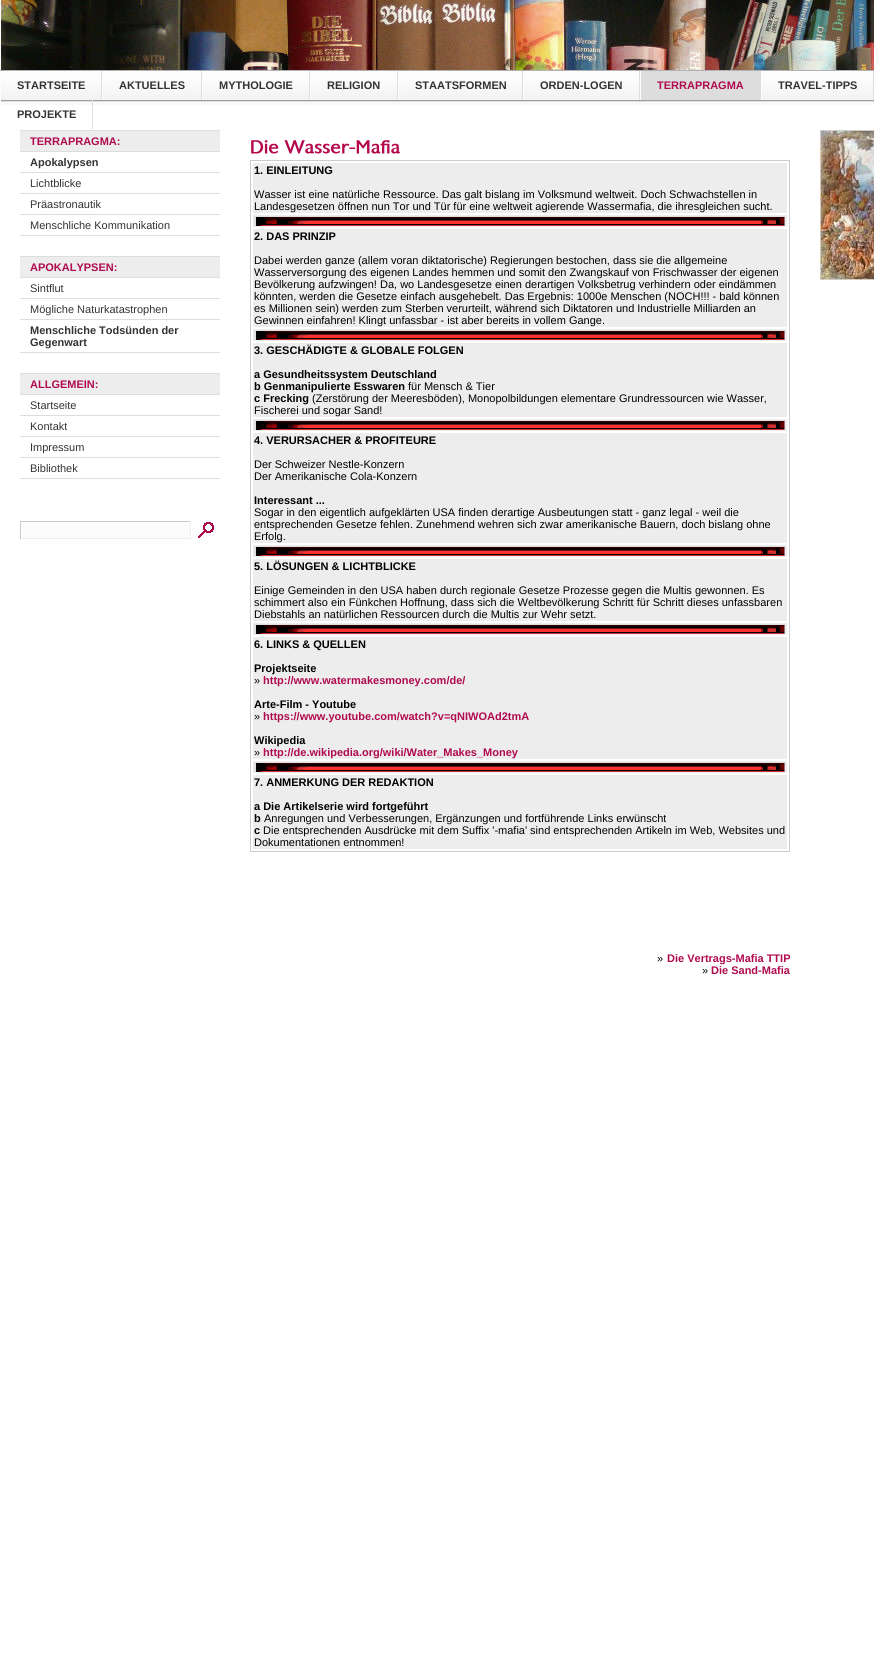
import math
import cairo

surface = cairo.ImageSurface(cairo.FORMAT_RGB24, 874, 1665)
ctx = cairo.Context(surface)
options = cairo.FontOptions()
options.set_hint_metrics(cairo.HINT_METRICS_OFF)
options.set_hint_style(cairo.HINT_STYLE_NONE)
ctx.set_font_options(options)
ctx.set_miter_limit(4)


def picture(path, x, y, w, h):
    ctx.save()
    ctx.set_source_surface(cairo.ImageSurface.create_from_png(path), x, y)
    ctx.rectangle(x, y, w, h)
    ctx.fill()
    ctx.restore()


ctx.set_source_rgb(1, 1, 1)
ctx.paint()
picture("img1.png", 0, 0, 874, 70)
ctx.set_source_rgb(0.976, 0.976, 0.976)
ctx.rectangle(1, 102, 873, 3)
ctx.fill()
picture("img2.png", 0, 70, 874, 32)
ctx.set_source_rgb(0.871, 0.871, 0.871)
ctx.rectangle(101, 71, 1, 29)
ctx.fill()
ctx.set_source_rgb(0.992, 0.992, 0.992)
ctx.rectangle(0, 82, 1, 20)
ctx.fill()
ctx.select_font_face("Liberation Sans", cairo.FONT_SLANT_NORMAL, cairo.FONT_WEIGHT_BOLD)
ctx.set_font_size(11)
ctx.set_source_rgb(0.2, 0.2, 0.2)
ctx.move_to(17, 89)
ctx.show_text("STARTSEITE")
ctx.set_source_rgb(0.871, 0.871, 0.871)
ctx.rectangle(201, 71, 1, 29)
ctx.fill()
ctx.set_source_rgb(0.992, 0.992, 0.992)
ctx.rectangle(102, 82, 1, 18)
ctx.fill()
ctx.set_source_rgb(0.2, 0.2, 0.2)
ctx.move_to(119, 89)
ctx.show_text("AKTUELLES")
ctx.set_source_rgb(0.871, 0.871, 0.871)
ctx.rectangle(309, 71, 1, 29)
ctx.fill()
ctx.set_source_rgb(0.992, 0.992, 0.992)
ctx.rectangle(202, 82, 1, 18)
ctx.fill()
ctx.set_source_rgb(0.2, 0.2, 0.2)
ctx.move_to(219, 89)
ctx.show_text("MYTHOLOGIE")
ctx.set_source_rgb(0.871, 0.871, 0.871)
ctx.rectangle(397, 71, 1, 29)
ctx.fill()
ctx.set_source_rgb(0.992, 0.992, 0.992)
ctx.rectangle(310, 82, 1, 18)
ctx.fill()
ctx.set_source_rgb(0.2, 0.2, 0.2)
ctx.move_to(327, 89)
ctx.show_text("RELIGION")
ctx.set_source_rgb(0.871, 0.871, 0.871)
ctx.rectangle(522, 71, 1, 29)
ctx.fill()
ctx.set_source_rgb(0.992, 0.992, 0.992)
ctx.rectangle(398, 82, 1, 18)
ctx.fill()
ctx.set_source_rgb(0.2, 0.2, 0.2)
ctx.move_to(415, 89)
ctx.show_text("STAATSFORMEN")
ctx.set_source_rgb(0.871, 0.871, 0.871)
ctx.rectangle(639, 71, 1, 29)
ctx.fill()
ctx.set_source_rgb(0.992, 0.992, 0.992)
ctx.rectangle(523, 82, 1, 18)
ctx.fill()
ctx.set_source_rgb(0.2, 0.2, 0.2)
ctx.move_to(540, 89)
ctx.show_text("ORDEN-LOGEN")
ctx.set_source_rgb(0.867, 0.867, 0.867)
ctx.rectangle(641, 71, 120, 29)
ctx.fill()
ctx.set_source_rgb(0.992, 0.992, 0.992)
ctx.rectangle(640, 82, 1, 18)
ctx.fill()
ctx.set_source_rgb(0.69, 0.043, 0.31)
ctx.move_to(657, 89)
ctx.show_text("TERRAPRAGMA")
ctx.set_source_rgb(0.871, 0.871, 0.871)
ctx.rectangle(873, 71, 1, 29)
ctx.fill()
ctx.set_source_rgb(0.992, 0.992, 0.992)
ctx.rectangle(761, 82, 1, 18)
ctx.fill()
ctx.set_source_rgb(0.2, 0.2, 0.2)
ctx.move_to(778, 89)
ctx.show_text("TRAVEL-TIPPS")
ctx.set_source_rgb(0.871, 0.871, 0.871)
ctx.rectangle(92, 100, 1, 29)
ctx.fill()
ctx.set_source_rgb(0.2, 0.2, 0.2)
ctx.move_to(17, 118)
ctx.show_text("PROJEKTE")
ctx.set_source_rgb(0.929, 0.929, 0.929)
ctx.rectangle(20, 131, 200, 20)
ctx.fill()
ctx.set_source_rgb(0.867, 0.867, 0.867)
ctx.rectangle(20, 130, 200, 1)
ctx.fill()
ctx.rectangle(20, 151, 200, 1)
ctx.fill()
ctx.set_source_rgb(0.69, 0.043, 0.31)
ctx.move_to(30, 145)
ctx.show_text("TERRAPRAGMA:")
ctx.set_source_rgb(0.867, 0.867, 0.867)
ctx.rectangle(20, 172, 200, 1)
ctx.fill()
ctx.set_source_rgb(0.2, 0.2, 0.2)
ctx.move_to(30, 166)
ctx.show_text("Apokalypsen")
ctx.set_source_rgb(0.867, 0.867, 0.867)
ctx.rectangle(20, 193, 200, 1)
ctx.fill()
ctx.select_font_face("Liberation Sans")
ctx.set_source_rgb(0.2, 0.2, 0.2)
ctx.move_to(30, 187)
ctx.show_text("Lichtblicke")
ctx.set_source_rgb(0.867, 0.867, 0.867)
ctx.rectangle(20, 214, 200, 1)
ctx.fill()
ctx.set_source_rgb(0.2, 0.2, 0.2)
ctx.move_to(30, 208)
ctx.show_text("Präastronautik")
ctx.set_source_rgb(0.867, 0.867, 0.867)
ctx.rectangle(20, 235, 200, 1)
ctx.fill()
ctx.set_source_rgb(0.2, 0.2, 0.2)
ctx.move_to(30, 229)
ctx.show_text("Menschliche Kommunikation")
ctx.set_source_rgb(0.929, 0.929, 0.929)
ctx.rectangle(20, 257, 200, 20)
ctx.fill()
ctx.set_source_rgb(0.867, 0.867, 0.867)
ctx.rectangle(20, 256, 200, 1)
ctx.fill()
ctx.rectangle(20, 277, 200, 1)
ctx.fill()
ctx.select_font_face("Liberation Sans", cairo.FONT_SLANT_NORMAL, cairo.FONT_WEIGHT_BOLD)
ctx.set_source_rgb(0.69, 0.043, 0.31)
ctx.move_to(30, 271)
ctx.show_text("APOKALYPSEN:")
ctx.set_source_rgb(0.867, 0.867, 0.867)
ctx.rectangle(20, 298, 200, 1)
ctx.fill()
ctx.select_font_face("Liberation Sans")
ctx.set_source_rgb(0.2, 0.2, 0.2)
ctx.move_to(30, 292)
ctx.show_text("Sintflut")
ctx.set_source_rgb(0.867, 0.867, 0.867)
ctx.rectangle(20, 319, 200, 1)
ctx.fill()
ctx.set_source_rgb(0.2, 0.2, 0.2)
ctx.move_to(30, 313)
ctx.show_text("Mögliche Naturkatastrophen")
ctx.set_source_rgb(0.867, 0.867, 0.867)
ctx.rectangle(20, 352, 200, 1)
ctx.fill()
ctx.select_font_face("Liberation Sans", cairo.FONT_SLANT_NORMAL, cairo.FONT_WEIGHT_BOLD)
ctx.set_source_rgb(0.2, 0.2, 0.2)
ctx.move_to(30, 334)
ctx.show_text("Menschliche Todsünden der")
ctx.move_to(30, 346)
ctx.show_text("Gegenwart")
ctx.set_source_rgb(0.929, 0.929, 0.929)
ctx.rectangle(20, 374, 200, 20)
ctx.fill()
ctx.set_source_rgb(0.867, 0.867, 0.867)
ctx.rectangle(20, 373, 200, 1)
ctx.fill()
ctx.rectangle(20, 394, 200, 1)
ctx.fill()
ctx.set_source_rgb(0.69, 0.043, 0.31)
ctx.move_to(30, 388)
ctx.show_text("ALLGEMEIN:")
ctx.set_source_rgb(0.867, 0.867, 0.867)
ctx.rectangle(20, 415, 200, 1)
ctx.fill()
ctx.select_font_face("Liberation Sans")
ctx.set_source_rgb(0.2, 0.2, 0.2)
ctx.move_to(30, 409)
ctx.show_text("Startseite")
ctx.set_source_rgb(0.867, 0.867, 0.867)
ctx.rectangle(20, 436, 200, 1)
ctx.fill()
ctx.set_source_rgb(0.2, 0.2, 0.2)
ctx.move_to(30, 430)
ctx.show_text("Kontakt")
ctx.set_source_rgb(0.867, 0.867, 0.867)
ctx.rectangle(20, 457, 200, 1)
ctx.fill()
ctx.set_source_rgb(0.2, 0.2, 0.2)
ctx.move_to(30, 451)
ctx.show_text("Impressum")
ctx.set_source_rgb(0.867, 0.867, 0.867)
ctx.rectangle(20, 478, 200, 1)
ctx.fill()
ctx.set_source_rgb(0.2, 0.2, 0.2)
ctx.move_to(30, 472)
ctx.show_text("Bibliothek")
ctx.set_source_rgb(0.988, 0.988, 0.988)
ctx.rectangle(21, 522, 169, 16)
ctx.fill()
ctx.set_source_rgb(0.8, 0.8, 0.8)
ctx.rectangle(20, 521, 171, 1)
ctx.fill()
ctx.set_source_rgb(0.933, 0.933, 0.933)
ctx.rectangle(190, 521, 1, 18)
ctx.fill()
ctx.rectangle(20, 538, 171, 1)
ctx.fill()
ctx.set_source_rgb(0.8, 0.8, 0.8)
ctx.rectangle(20, 521, 1, 18)
ctx.fill()
picture("img3.png", 198, 522, 16, 16)
picture("img4.png", 251, 140, 149, 14)
ctx.rectangle(250.5, 160.5, 539, 691)
ctx.set_line_width(1)
ctx.stroke()
ctx.set_source_rgb(0.929, 0.929, 0.929)
ctx.rectangle(253, 163, 534, 50)
ctx.fill()
ctx.select_font_face("Liberation Sans", cairo.FONT_SLANT_NORMAL, cairo.FONT_WEIGHT_BOLD)
ctx.set_source_rgb(0, 0, 0)
ctx.move_to(254, 174)
ctx.show_text("1. EINLEITUNG")
ctx.select_font_face("Liberation Sans")
ctx.move_to(254, 198)
ctx.show_text("Wasser ist eine natürliche Ressource. Das galt bislang im Volksmund weltweit. Doch Schwachstellen in")
ctx.move_to(254, 210)
ctx.show_text("Landesgesetzen öffnen nun Tor und Tür für eine weltweit agierende Wassermafia, die ihresgleichen sucht.")
ctx.set_source_rgb(0.929, 0.929, 0.929)
ctx.rectangle(253, 215, 534, 12)
ctx.fill()
picture("img5.png", 254, 216, 531, 10)
ctx.rectangle(253, 229, 534, 98)
ctx.fill()
ctx.select_font_face("Liberation Sans", cairo.FONT_SLANT_NORMAL, cairo.FONT_WEIGHT_BOLD)
ctx.set_source_rgb(0, 0, 0)
ctx.move_to(254, 240)
ctx.show_text("2. DAS PRINZIP")
ctx.select_font_face("Liberation Sans")
ctx.move_to(254, 264)
ctx.show_text("Dabei werden ganze (allem voran diktatorische) Regierungen bestochen, dass sie die allgemeine")
ctx.move_to(254, 276)
ctx.show_text("Wasserversorgung des eigenen Landes hemmen und somit den Zwangskauf von Frischwasser der eigenen")
ctx.move_to(254, 288)
ctx.show_text("Bevölkerung aufzwingen! Da, wo Landesgesetze einen derartigen Volksbetrug verhindern oder eindämmen")
ctx.move_to(254, 300)
ctx.show_text("könnten, werden die Gesetze einfach ausgehebelt. Das Ergebnis: 1000e Menschen (NOCH!!! - bald können")
ctx.move_to(254, 312)
ctx.show_text("es Millionen sein) werden zum Sterben verurteilt, während sich Diktatoren und Industrielle Milliarden an")
ctx.move_to(254, 324)
ctx.show_text("Gewinnen einfahren! Klingt unfassbar - ist aber bereits in vollem Gange.")
ctx.set_source_rgb(0.929, 0.929, 0.929)
ctx.rectangle(253, 329, 534, 12)
ctx.fill()
picture("img5.png", 254, 330, 531, 10)
ctx.rectangle(253, 343, 534, 74)
ctx.fill()
ctx.select_font_face("Liberation Sans", cairo.FONT_SLANT_NORMAL, cairo.FONT_WEIGHT_BOLD)
ctx.set_source_rgb(0, 0, 0)
ctx.move_to(254, 354)
ctx.show_text("3. GESCHÄDIGTE & GLOBALE FOLGEN")
ctx.move_to(254, 378)
ctx.show_text("a Gesundheitssystem Deutschland")
ctx.move_to(254, 390)
ctx.show_text("b Genmanipulierte Esswaren")
ctx.select_font_face("Liberation Sans")
ctx.move_to(408, 390)
ctx.show_text("für Mensch & Tier")
ctx.select_font_face("Liberation Sans", cairo.FONT_SLANT_NORMAL, cairo.FONT_WEIGHT_BOLD)
ctx.move_to(254, 402)
ctx.show_text("c Frecking")
ctx.select_font_face("Liberation Sans")
ctx.move_to(312, 402)
ctx.show_text("(Zerstörung der Meeresböden), Monopolbildungen elementare Grundressourcen wie Wasser,")
ctx.move_to(254, 414)
ctx.show_text("Fischerei und sogar Sand!")
ctx.set_source_rgb(0.929, 0.929, 0.929)
ctx.rectangle(253, 419, 534, 12)
ctx.fill()
picture("img5.png", 254, 420, 531, 10)
ctx.rectangle(253, 433, 534, 110)
ctx.fill()
ctx.select_font_face("Liberation Sans", cairo.FONT_SLANT_NORMAL, cairo.FONT_WEIGHT_BOLD)
ctx.set_source_rgb(0, 0, 0)
ctx.move_to(254, 444)
ctx.show_text("4. VERURSACHER & PROFITEURE")
ctx.select_font_face("Liberation Sans")
ctx.move_to(254, 468)
ctx.show_text("Der Schweizer Nestle-Konzern")
ctx.move_to(254, 480)
ctx.show_text("Der Amerikanische Cola-Konzern")
ctx.select_font_face("Liberation Sans", cairo.FONT_SLANT_NORMAL, cairo.FONT_WEIGHT_BOLD)
ctx.move_to(254, 504)
ctx.show_text("Interessant ...")
ctx.select_font_face("Liberation Sans")
ctx.move_to(254, 516)
ctx.show_text("Sogar in den eigentlich aufgeklärten USA finden derartige Ausbeutungen statt - ganz legal - weil die")
ctx.move_to(254, 528)
ctx.show_text("entsprechenden Gesetze fehlen. Zunehmend wehren sich zwar amerikanische Bauern, doch bislang ohne")
ctx.move_to(254, 540)
ctx.show_text("Erfolg.")
ctx.set_source_rgb(0.929, 0.929, 0.929)
ctx.rectangle(253, 545, 534, 12)
ctx.fill()
picture("img5.png", 254, 546, 531, 10)
ctx.rectangle(253, 559, 534, 62)
ctx.fill()
ctx.select_font_face("Liberation Sans", cairo.FONT_SLANT_NORMAL, cairo.FONT_WEIGHT_BOLD)
ctx.set_source_rgb(0, 0, 0)
ctx.move_to(254, 570)
ctx.show_text("5. LÖSUNGEN & LICHTBLICKE")
ctx.select_font_face("Liberation Sans")
ctx.move_to(254, 594)
ctx.show_text("Einige Gemeinden in den USA haben durch regionale Gesetze Prozesse gegen die Multis gewonnen. Es")
ctx.move_to(254, 606)
ctx.show_text("schimmert also ein Fünkchen Hoffnung, dass sich die Weltbevölkerung Schritt für Schritt dieses unfassbaren")
ctx.move_to(254, 618)
ctx.show_text("Diebstahls an natürlichen Ressourcen durch die Multis zur Wehr setzt.")
ctx.set_source_rgb(0.929, 0.929, 0.929)
ctx.rectangle(253, 623, 534, 12)
ctx.fill()
picture("img5.png", 254, 624, 531, 10)
ctx.rectangle(253, 637, 534, 122)
ctx.fill()
ctx.select_font_face("Liberation Sans", cairo.FONT_SLANT_NORMAL, cairo.FONT_WEIGHT_BOLD)
ctx.set_source_rgb(0, 0, 0)
ctx.move_to(254, 648)
ctx.show_text("6. LINKS & QUELLEN")
ctx.move_to(254, 672)
ctx.show_text("Projektseite")
ctx.select_font_face("Liberation Sans")
ctx.move_to(254, 684)
ctx.show_text("»")
ctx.select_font_face("Liberation Sans", cairo.FONT_SLANT_NORMAL, cairo.FONT_WEIGHT_BOLD)
ctx.set_source_rgb(0.69, 0.043, 0.31)
ctx.move_to(263, 684)
ctx.show_text("http://www.watermakesmoney.com/de/")
ctx.set_source_rgb(0, 0, 0)
ctx.move_to(254, 708)
ctx.show_text("Arte-Film - Youtube")
ctx.select_font_face("Liberation Sans")
ctx.move_to(254, 720)
ctx.show_text("»")
ctx.select_font_face("Liberation Sans", cairo.FONT_SLANT_NORMAL, cairo.FONT_WEIGHT_BOLD)
ctx.set_source_rgb(0.69, 0.043, 0.31)
ctx.move_to(263, 720)
ctx.show_text("https://www.youtube.com/watch?v=qNIWOAd2tmA")
ctx.set_source_rgb(0, 0, 0)
ctx.move_to(254, 744)
ctx.show_text("Wikipedia")
ctx.select_font_face("Liberation Sans")
ctx.move_to(254, 756)
ctx.show_text("»")
ctx.select_font_face("Liberation Sans", cairo.FONT_SLANT_NORMAL, cairo.FONT_WEIGHT_BOLD)
ctx.set_source_rgb(0.69, 0.043, 0.31)
ctx.move_to(263, 756)
ctx.show_text("http://de.wikipedia.org/wiki/Water_Makes_Money")
ctx.set_source_rgb(0.929, 0.929, 0.929)
ctx.rectangle(253, 761, 534, 12)
ctx.fill()
picture("img5.png", 254, 762, 531, 10)
ctx.rectangle(253, 775, 534, 74)
ctx.fill()
ctx.set_source_rgb(0, 0, 0)
ctx.move_to(254, 786)
ctx.show_text("7. ANMERKUNG DER REDAKTION")
ctx.move_to(254, 810)
ctx.show_text("a Die Artikelserie wird fortgeführt")
ctx.move_to(254, 822)
ctx.show_text("b")
ctx.select_font_face("Liberation Sans")
ctx.move_to(264, 822)
ctx.show_text("Anregungen und Verbesserungen, Ergänzungen und fortführende Links erwünscht")
ctx.select_font_face("Liberation Sans", cairo.FONT_SLANT_NORMAL, cairo.FONT_WEIGHT_BOLD)
ctx.move_to(254, 834)
ctx.show_text("c")
ctx.select_font_face("Liberation Sans")
ctx.move_to(263, 834)
ctx.show_text("Die entsprechenden Ausdrücke mit dem Suffix '-mafia' sind entsprechenden Artikeln im Web, Websites und")
ctx.move_to(254, 846)
ctx.show_text("Dokumentationen entnommen!")
ctx.move_to(657, 962)
ctx.show_text("»")
ctx.select_font_face("Liberation Sans", cairo.FONT_SLANT_NORMAL, cairo.FONT_WEIGHT_BOLD)
ctx.set_source_rgb(0.69, 0.043, 0.31)
ctx.move_to(667, 962)
ctx.show_text("Die Vertrags-Mafia TTIP")
ctx.select_font_face("Liberation Sans")
ctx.set_source_rgb(0, 0, 0)
ctx.move_to(702, 974)
ctx.show_text("»")
ctx.select_font_face("Liberation Sans", cairo.FONT_SLANT_NORMAL, cairo.FONT_WEIGHT_BOLD)
ctx.set_source_rgb(0.69, 0.043, 0.31)
ctx.move_to(711, 974)
ctx.show_text("Die Sand-Mafia")
picture("img6.png", 820, 130, 54, 150)
surface.write_to_png("page.png")
